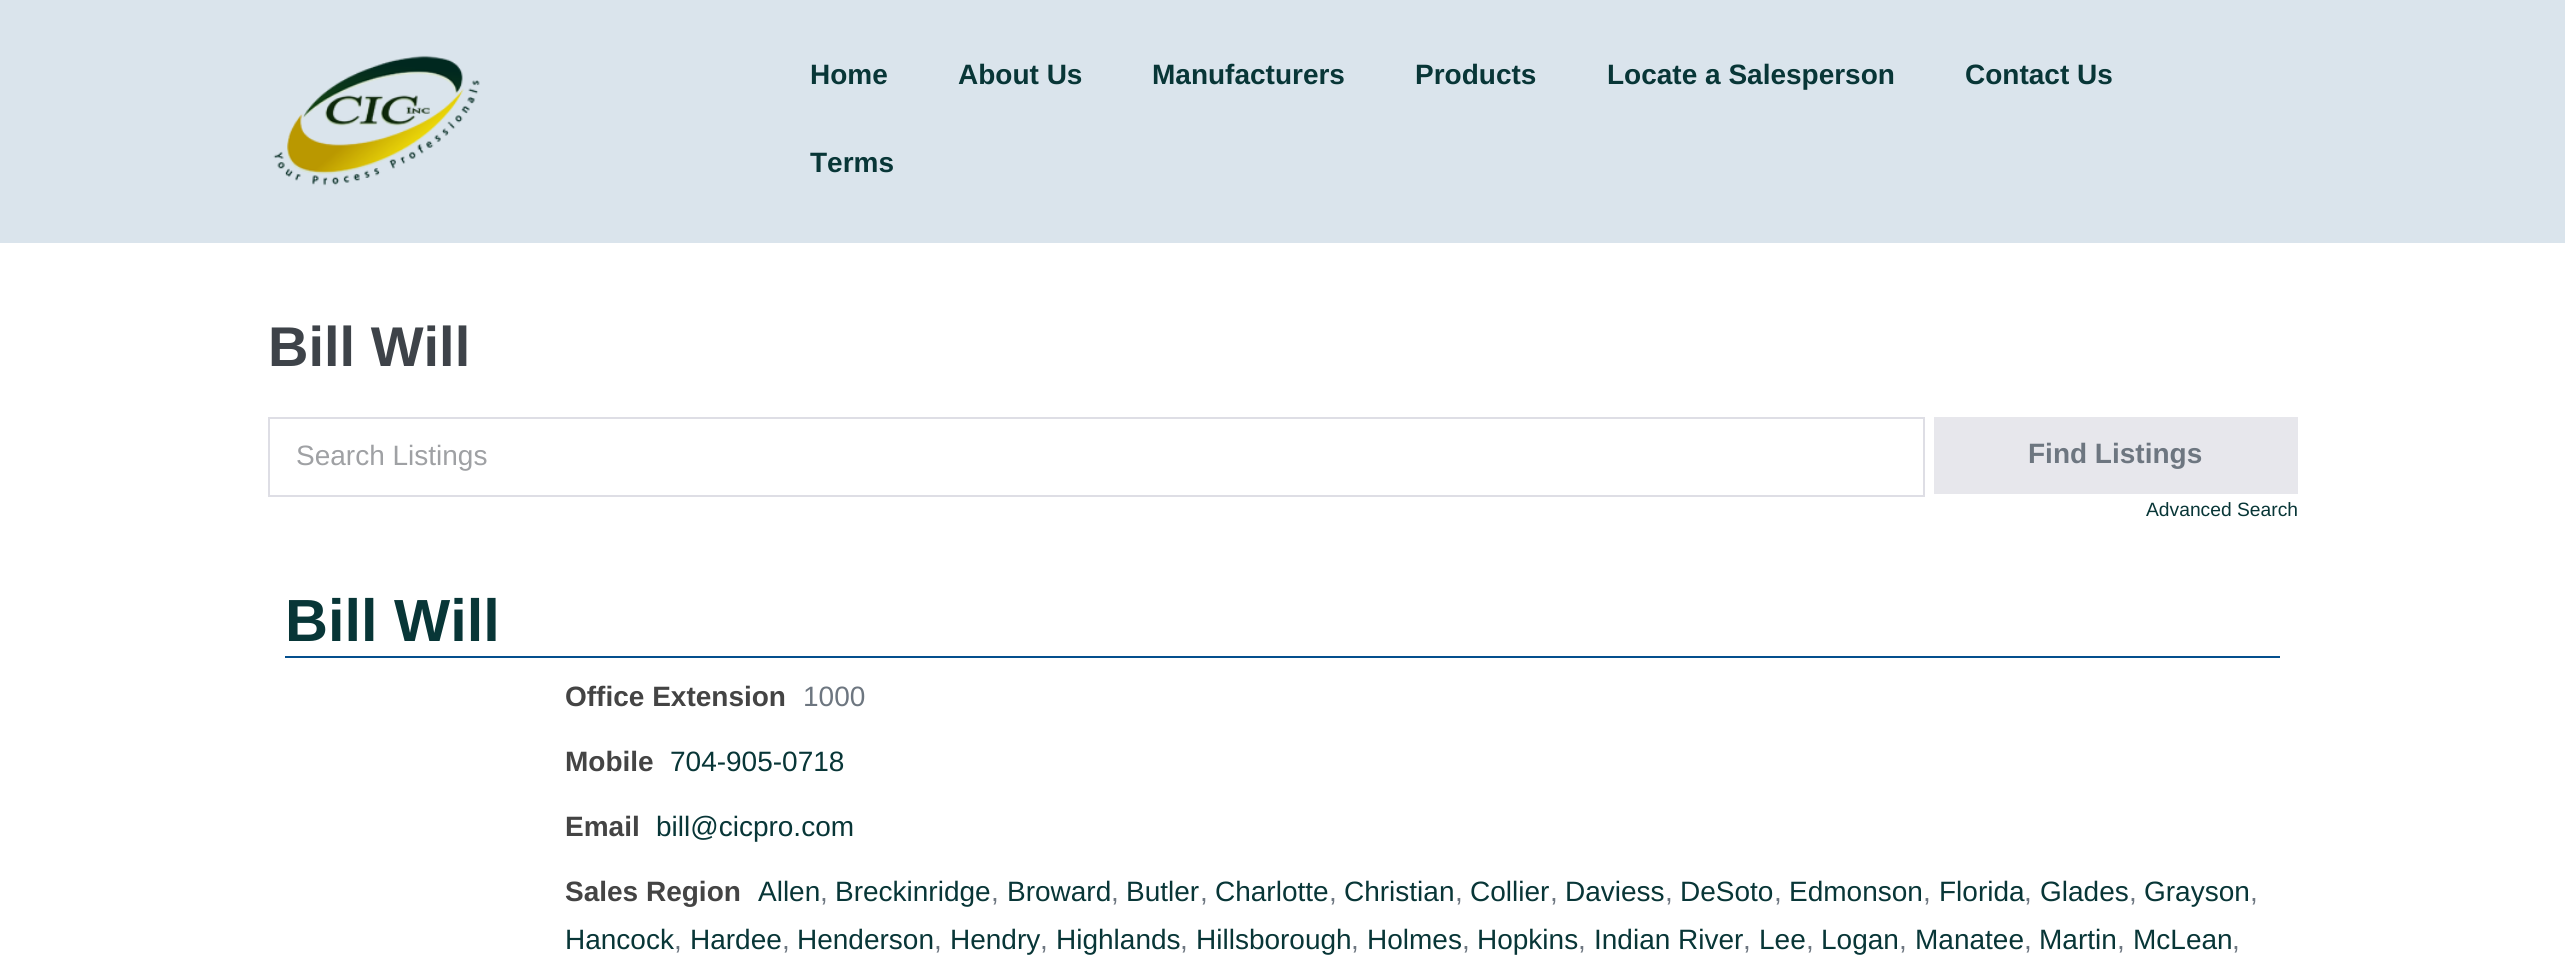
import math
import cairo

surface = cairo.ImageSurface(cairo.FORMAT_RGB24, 2565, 977)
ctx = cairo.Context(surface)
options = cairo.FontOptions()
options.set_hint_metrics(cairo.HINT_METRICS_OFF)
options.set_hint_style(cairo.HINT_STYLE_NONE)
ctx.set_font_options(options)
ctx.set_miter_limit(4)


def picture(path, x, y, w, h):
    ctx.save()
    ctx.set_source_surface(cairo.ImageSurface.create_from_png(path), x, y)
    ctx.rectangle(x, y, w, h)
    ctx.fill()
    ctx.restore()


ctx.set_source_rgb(1, 1, 1)
ctx.paint()
ctx.set_source_rgb(0.855, 0.894, 0.922)
ctx.rectangle(0, 0, 2565, 243)
ctx.fill()
picture("img1.png", 273, 55, 207, 131)
ctx.select_font_face("Liberation Sans", cairo.FONT_SLANT_NORMAL, cairo.FONT_WEIGHT_BOLD)
ctx.set_font_size(28)
ctx.set_source_rgb(0.035, 0.212, 0.216)
ctx.move_to(810, 84)
ctx.show_text("Home")
ctx.move_to(958, 84)
ctx.show_text("About Us")
ctx.move_to(1152, 84)
ctx.show_text("Manufacturers")
ctx.move_to(1415, 84)
ctx.show_text("Products")
ctx.move_to(1607, 84)
ctx.show_text("Locate a Salesperson")
ctx.move_to(1965, 84)
ctx.show_text("Contact Us")
ctx.move_to(810, 172)
ctx.show_text("Terms")
ctx.set_font_size(56)
ctx.set_source_rgb(0.243, 0.263, 0.286)
ctx.move_to(268, 366)
ctx.show_text("Bill Will")
ctx.rectangle(269, 418, 1655, 78)
ctx.set_source_rgb(0.871, 0.871, 0.898)
ctx.stroke()
ctx.select_font_face("Liberation Sans")
ctx.set_font_size(28)
ctx.set_source_rgb(0.624, 0.631, 0.643)
ctx.move_to(296, 465)
ctx.show_text("Search Listings")
ctx.set_source_rgb(0.906, 0.906, 0.925)
ctx.rectangle(1934, 417, 364, 77)
ctx.fill()
ctx.select_font_face("Liberation Sans", cairo.FONT_SLANT_NORMAL, cairo.FONT_WEIGHT_BOLD)
ctx.set_source_rgb(0.427, 0.463, 0.502)
ctx.move_to(2028, 463)
ctx.show_text("Find Listings")
ctx.select_font_face("Liberation Sans")
ctx.set_font_size(19.25)
ctx.set_source_rgb(0.035, 0.212, 0.216)
ctx.move_to(2146, 516)
ctx.show_text("Advanced Search")
ctx.set_source_rgb(0.016, 0.31, 0.553)
ctx.rectangle(285, 656, 1995, 2)
ctx.fill()
ctx.select_font_face("Liberation Sans", cairo.FONT_SLANT_NORMAL, cairo.FONT_WEIGHT_BOLD)
ctx.set_font_size(59.5)
ctx.set_source_rgb(0.035, 0.212, 0.216)
ctx.move_to(285, 641)
ctx.show_text("Bill Will")
ctx.set_font_size(28)
ctx.set_source_rgb(0.267, 0.267, 0.267)
ctx.move_to(565, 706)
ctx.show_text("Office Extension")
ctx.select_font_face("Liberation Sans")
ctx.set_source_rgb(0.427, 0.463, 0.502)
ctx.move_to(803, 706)
ctx.show_text("1000")
ctx.select_font_face("Liberation Sans", cairo.FONT_SLANT_NORMAL, cairo.FONT_WEIGHT_BOLD)
ctx.set_source_rgb(0.267, 0.267, 0.267)
ctx.move_to(565, 771)
ctx.show_text("Mobile")
ctx.select_font_face("Liberation Sans")
ctx.set_source_rgb(0.035, 0.212, 0.216)
ctx.move_to(670, 771)
ctx.show_text("704-905-0718")
ctx.select_font_face("Liberation Sans", cairo.FONT_SLANT_NORMAL, cairo.FONT_WEIGHT_BOLD)
ctx.set_source_rgb(0.267, 0.267, 0.267)
ctx.move_to(565, 836)
ctx.show_text("Email")
ctx.select_font_face("Liberation Sans")
ctx.set_source_rgb(0.035, 0.212, 0.216)
ctx.move_to(656, 836)
ctx.show_text("bill@cicpro.com")
ctx.select_font_face("Liberation Sans", cairo.FONT_SLANT_NORMAL, cairo.FONT_WEIGHT_BOLD)
ctx.set_source_rgb(0.267, 0.267, 0.267)
ctx.move_to(565, 901)
ctx.show_text("Sales Region")
ctx.select_font_face("Liberation Sans")
ctx.set_source_rgb(0.035, 0.212, 0.216)
ctx.move_to(758, 901)
ctx.show_text("Allen")
ctx.set_source_rgb(0.427, 0.463, 0.502)
ctx.move_to(820, 901)
ctx.show_text(",")
ctx.set_source_rgb(0.035, 0.212, 0.216)
ctx.move_to(835, 901)
ctx.show_text("Breckinridge")
ctx.set_source_rgb(0.427, 0.463, 0.502)
ctx.move_to(991, 901)
ctx.show_text(",")
ctx.set_source_rgb(0.035, 0.212, 0.216)
ctx.move_to(1007, 901)
ctx.show_text("Broward")
ctx.set_source_rgb(0.427, 0.463, 0.502)
ctx.move_to(1111, 901)
ctx.show_text(",")
ctx.set_source_rgb(0.035, 0.212, 0.216)
ctx.move_to(1126, 901)
ctx.show_text("Butler")
ctx.set_source_rgb(0.427, 0.463, 0.502)
ctx.move_to(1200, 901)
ctx.show_text(",")
ctx.set_source_rgb(0.035, 0.212, 0.216)
ctx.move_to(1215, 901)
ctx.show_text("Charlotte")
ctx.set_source_rgb(0.427, 0.463, 0.502)
ctx.move_to(1329, 901)
ctx.show_text(",")
ctx.set_source_rgb(0.035, 0.212, 0.216)
ctx.move_to(1344, 901)
ctx.show_text("Christian")
ctx.set_source_rgb(0.427, 0.463, 0.502)
ctx.move_to(1455, 901)
ctx.show_text(",")
ctx.set_source_rgb(0.035, 0.212, 0.216)
ctx.move_to(1470, 901)
ctx.show_text("Collier")
ctx.set_source_rgb(0.427, 0.463, 0.502)
ctx.move_to(1550, 901)
ctx.show_text(",")
ctx.set_source_rgb(0.035, 0.212, 0.216)
ctx.move_to(1565, 901)
ctx.show_text("Daviess")
ctx.set_source_rgb(0.427, 0.463, 0.502)
ctx.move_to(1665, 901)
ctx.show_text(",")
ctx.set_source_rgb(0.035, 0.212, 0.216)
ctx.move_to(1680, 901)
ctx.show_text("DeSoto")
ctx.set_source_rgb(0.427, 0.463, 0.502)
ctx.move_to(1774, 901)
ctx.show_text(",")
ctx.set_source_rgb(0.035, 0.212, 0.216)
ctx.move_to(1789, 901)
ctx.show_text("Edmonson")
ctx.set_source_rgb(0.427, 0.463, 0.502)
ctx.move_to(1923, 901)
ctx.show_text(",")
ctx.set_source_rgb(0.035, 0.212, 0.216)
ctx.move_to(1939, 901)
ctx.show_text("Florida")
ctx.set_source_rgb(0.427, 0.463, 0.502)
ctx.move_to(2024, 901)
ctx.show_text(",")
ctx.set_source_rgb(0.035, 0.212, 0.216)
ctx.move_to(2040, 901)
ctx.show_text("Glades")
ctx.set_source_rgb(0.427, 0.463, 0.502)
ctx.move_to(2129, 901)
ctx.show_text(",")
ctx.set_source_rgb(0.035, 0.212, 0.216)
ctx.move_to(2144, 901)
ctx.show_text("Grayson")
ctx.set_source_rgb(0.427, 0.463, 0.502)
ctx.move_to(2250, 901)
ctx.show_text(",")
ctx.set_source_rgb(0.035, 0.212, 0.216)
ctx.move_to(565, 949)
ctx.show_text("Hancock")
ctx.set_source_rgb(0.427, 0.463, 0.502)
ctx.move_to(674, 949)
ctx.show_text(",")
ctx.set_source_rgb(0.035, 0.212, 0.216)
ctx.move_to(690, 949)
ctx.show_text("Hardee")
ctx.set_source_rgb(0.427, 0.463, 0.502)
ctx.move_to(782, 949)
ctx.show_text(",")
ctx.set_source_rgb(0.035, 0.212, 0.216)
ctx.move_to(797, 949)
ctx.show_text("Henderson")
ctx.set_source_rgb(0.427, 0.463, 0.502)
ctx.move_to(934, 949)
ctx.show_text(",")
ctx.set_source_rgb(0.035, 0.212, 0.216)
ctx.move_to(950, 949)
ctx.show_text("Hendry")
ctx.set_source_rgb(0.427, 0.463, 0.502)
ctx.move_to(1040, 949)
ctx.show_text(",")
ctx.set_source_rgb(0.035, 0.212, 0.216)
ctx.move_to(1056, 949)
ctx.show_text("Highlands")
ctx.set_source_rgb(0.427, 0.463, 0.502)
ctx.move_to(1180, 949)
ctx.show_text(",")
ctx.set_source_rgb(0.035, 0.212, 0.216)
ctx.move_to(1196, 949)
ctx.show_text("Hillsborough")
ctx.set_source_rgb(0.427, 0.463, 0.502)
ctx.move_to(1351, 949)
ctx.show_text(",")
ctx.set_source_rgb(0.035, 0.212, 0.216)
ctx.move_to(1367, 949)
ctx.show_text("Holmes")
ctx.set_source_rgb(0.427, 0.463, 0.502)
ctx.move_to(1462, 949)
ctx.show_text(",")
ctx.set_source_rgb(0.035, 0.212, 0.216)
ctx.move_to(1477, 949)
ctx.show_text("Hopkins")
ctx.set_source_rgb(0.427, 0.463, 0.502)
ctx.move_to(1578, 949)
ctx.show_text(",")
ctx.set_source_rgb(0.035, 0.212, 0.216)
ctx.move_to(1594, 949)
ctx.show_text("Indian River")
ctx.set_source_rgb(0.427, 0.463, 0.502)
ctx.move_to(1743, 949)
ctx.show_text(",")
ctx.set_source_rgb(0.035, 0.212, 0.216)
ctx.move_to(1759, 949)
ctx.show_text("Lee")
ctx.set_source_rgb(0.427, 0.463, 0.502)
ctx.move_to(1806, 949)
ctx.show_text(",")
ctx.set_source_rgb(0.035, 0.212, 0.216)
ctx.move_to(1821, 949)
ctx.show_text("Logan")
ctx.set_source_rgb(0.427, 0.463, 0.502)
ctx.move_to(1899, 949)
ctx.show_text(",")
ctx.set_source_rgb(0.035, 0.212, 0.216)
ctx.move_to(1915, 949)
ctx.show_text("Manatee")
ctx.set_source_rgb(0.427, 0.463, 0.502)
ctx.move_to(2024, 949)
ctx.show_text(",")
ctx.set_source_rgb(0.035, 0.212, 0.216)
ctx.move_to(2039, 949)
ctx.show_text("Martin")
ctx.set_source_rgb(0.427, 0.463, 0.502)
ctx.move_to(2117, 949)
ctx.show_text(",")
ctx.set_source_rgb(0.035, 0.212, 0.216)
ctx.move_to(2133, 949)
ctx.show_text("McLean")
ctx.set_source_rgb(0.427, 0.463, 0.502)
ctx.move_to(2232, 949)
ctx.show_text(",")
surface.write_to_png("page.png")
